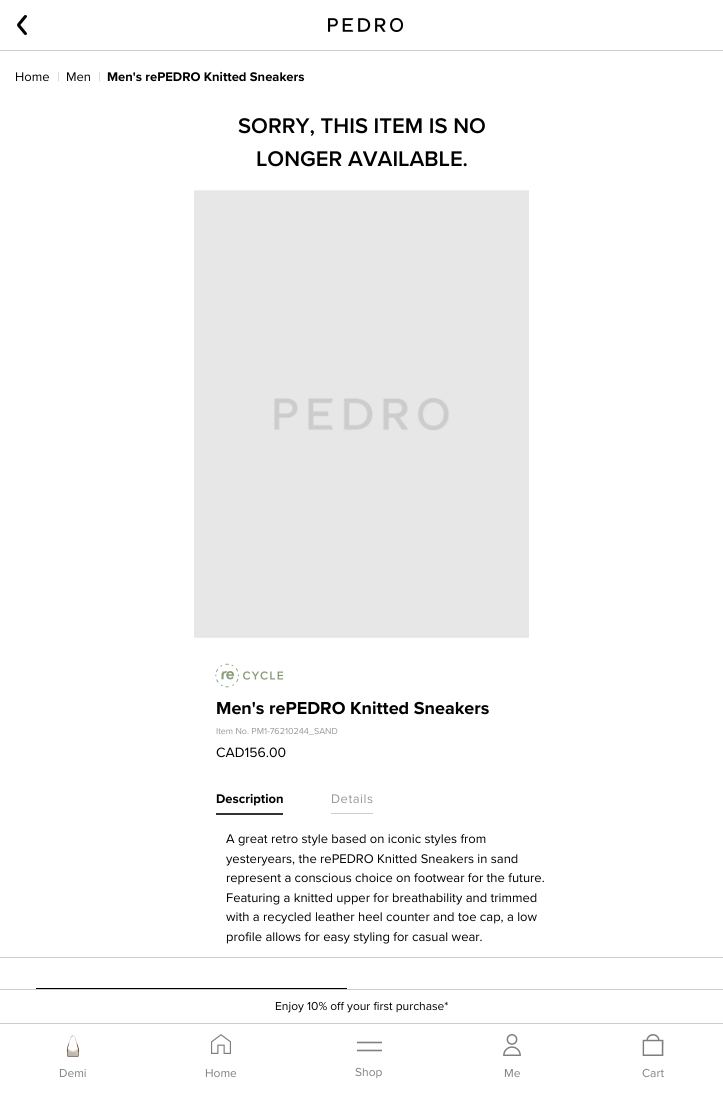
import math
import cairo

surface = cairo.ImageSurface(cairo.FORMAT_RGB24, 723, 1103)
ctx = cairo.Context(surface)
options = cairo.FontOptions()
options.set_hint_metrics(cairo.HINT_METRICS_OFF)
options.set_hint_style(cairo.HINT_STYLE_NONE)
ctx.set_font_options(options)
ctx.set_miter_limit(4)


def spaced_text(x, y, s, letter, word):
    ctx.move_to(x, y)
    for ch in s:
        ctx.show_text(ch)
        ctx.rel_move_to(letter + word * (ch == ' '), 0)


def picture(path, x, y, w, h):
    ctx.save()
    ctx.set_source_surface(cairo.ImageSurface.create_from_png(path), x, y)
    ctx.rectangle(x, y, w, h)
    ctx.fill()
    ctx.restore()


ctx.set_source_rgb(1, 1, 1)
ctx.paint()
ctx.select_font_face("Proxima Nova")
ctx.set_font_size(13)
ctx.set_source_rgb(0, 0, 0)
ctx.move_to(15, 81)
ctx.show_text("Home")
ctx.set_source_rgb(0.8, 0.8, 0.8)
ctx.move_to(57, 81)
ctx.show_text("|")
ctx.set_source_rgb(0, 0, 0)
ctx.move_to(66, 81)
ctx.show_text("Men")
ctx.set_source_rgb(0.8, 0.8, 0.8)
ctx.move_to(98, 81)
ctx.show_text("|")
ctx.select_font_face("Proxima Nova", cairo.FONT_SLANT_NORMAL, cairo.FONT_WEIGHT_BOLD)
ctx.set_source_rgb(0, 0, 0)
ctx.move_to(107, 81)
ctx.show_text("Men's rePEDRO Knitted Sneakers")
ctx.select_font_face("Proxima Nova SemiBold")
ctx.set_font_size(22)
ctx.move_to(238, 133)
ctx.show_text("SORRY, THIS ITEM IS NO")
ctx.move_to(256, 166)
ctx.show_text("LONGER AVAILABLE.")
picture("img1.png", 194, 190, 335, 448)
picture("img2.png", 215, 663, 69, 25)
ctx.select_font_face("Proxima Nova", cairo.FONT_SLANT_NORMAL, cairo.FONT_WEIGHT_BOLD)
ctx.set_font_size(18)
ctx.move_to(216, 714)
ctx.show_text("Men's rePEDRO Knitted Sneakers")
ctx.select_font_face("Proxima Nova")
ctx.set_font_size(9)
ctx.set_source_rgb(0.6, 0.6, 0.6)
ctx.move_to(216, 734)
ctx.show_text("Item No. PM1-76210244_SAND")
ctx.set_font_size(14)
ctx.set_source_rgb(0, 0, 0)
ctx.move_to(216, 757)
ctx.show_text("CAD156.00")
ctx.set_source_rgb(0.2, 0.2, 0.2)
ctx.rectangle(216, 813, 67, 2)
ctx.fill()
ctx.select_font_face("Proxima Nova", cairo.FONT_SLANT_NORMAL, cairo.FONT_WEIGHT_BOLD)
ctx.set_font_size(13)
ctx.set_source_rgb(0, 0, 0)
ctx.move_to(216, 803)
ctx.show_text("Description")
ctx.set_source_rgb(0.8, 0.8, 0.8)
ctx.rectangle(331, 813, 42, 1)
ctx.fill()
ctx.select_font_face("Proxima Nova")
ctx.set_source_rgb(0.6, 0.6, 0.6)
spaced_text(331, 803, "Details", 0.5, 0)
ctx.set_source_rgb(0, 0, 0)
ctx.move_to(226, 843)
ctx.show_text("A great retro style based on iconic styles from")
ctx.move_to(226, 863)
ctx.show_text("yesteryears, the rePEDRO Knitted Sneakers in sand")
ctx.move_to(226, 882)
ctx.show_text("represent a conscious choice on footwear for the future.")
ctx.move_to(226, 902)
ctx.show_text("Featuring a knitted upper for breathability and trimmed")
ctx.move_to(226, 921)
ctx.show_text("with a recycled leather heel counter and toe cap, a low")
ctx.move_to(226, 941)
ctx.show_text("profile allows for easy styling for casual wear.")
ctx.set_source_rgb(0.8, 0.8, 0.8)
ctx.rectangle(0, 957, 723, 1)
ctx.fill()
ctx.rectangle(36.5, 988.5, 310, 38)
ctx.set_source_rgb(0, 0, 0)
ctx.set_line_width(1)
ctx.stroke()
ctx.set_source_rgb(0.8, 0.8, 0.8)
ctx.rectangle(0, 50, 723, 1)
ctx.fill()
picture("img3.png", 17, 15, 10, 20)
picture("img4.png", 328, 18, 75, 14)
ctx.set_source_rgb(1, 1, 1)
ctx.rectangle(36, 1024, 311, 3)
ctx.fill()
ctx.rectangle(36, 990, 311, 33)
ctx.fill()
ctx.set_source_rgb(0.8, 0.8, 0.8)
ctx.rectangle(0, 989, 723, 1)
ctx.fill()
ctx.rectangle(0, 1023, 723, 1)
ctx.fill()
ctx.set_font_size(12)
ctx.set_source_rgb(0, 0, 0)
ctx.move_to(275, 1010)
ctx.show_text("Enjoy 10% off your first purchase*")
picture("img5.png", 66, 1035, 14, 22)
ctx.set_source_rgb(0.502, 0.502, 0.502)
ctx.move_to(59, 1077)
ctx.show_text("Demi")
picture("img6.png", 211, 1034, 20, 20)
ctx.move_to(205, 1077)
ctx.show_text("Home")
ctx.new_path()
ctx.move_to(357, 1042.5)
ctx.line_to(382, 1042.5)
ctx.move_to(357, 1050.5)
ctx.line_to(382, 1050.5)
ctx.set_line_width(1.6)
ctx.stroke()
ctx.move_to(355, 1076)
ctx.show_text("Shop")
picture("img7.png", 503, 1034, 18, 22)
ctx.move_to(504, 1077)
ctx.show_text("Me")
picture("img8.png", 642, 1034, 22, 22)
ctx.move_to(642, 1077)
ctx.show_text("Cart")
surface.write_to_png("page.png")
